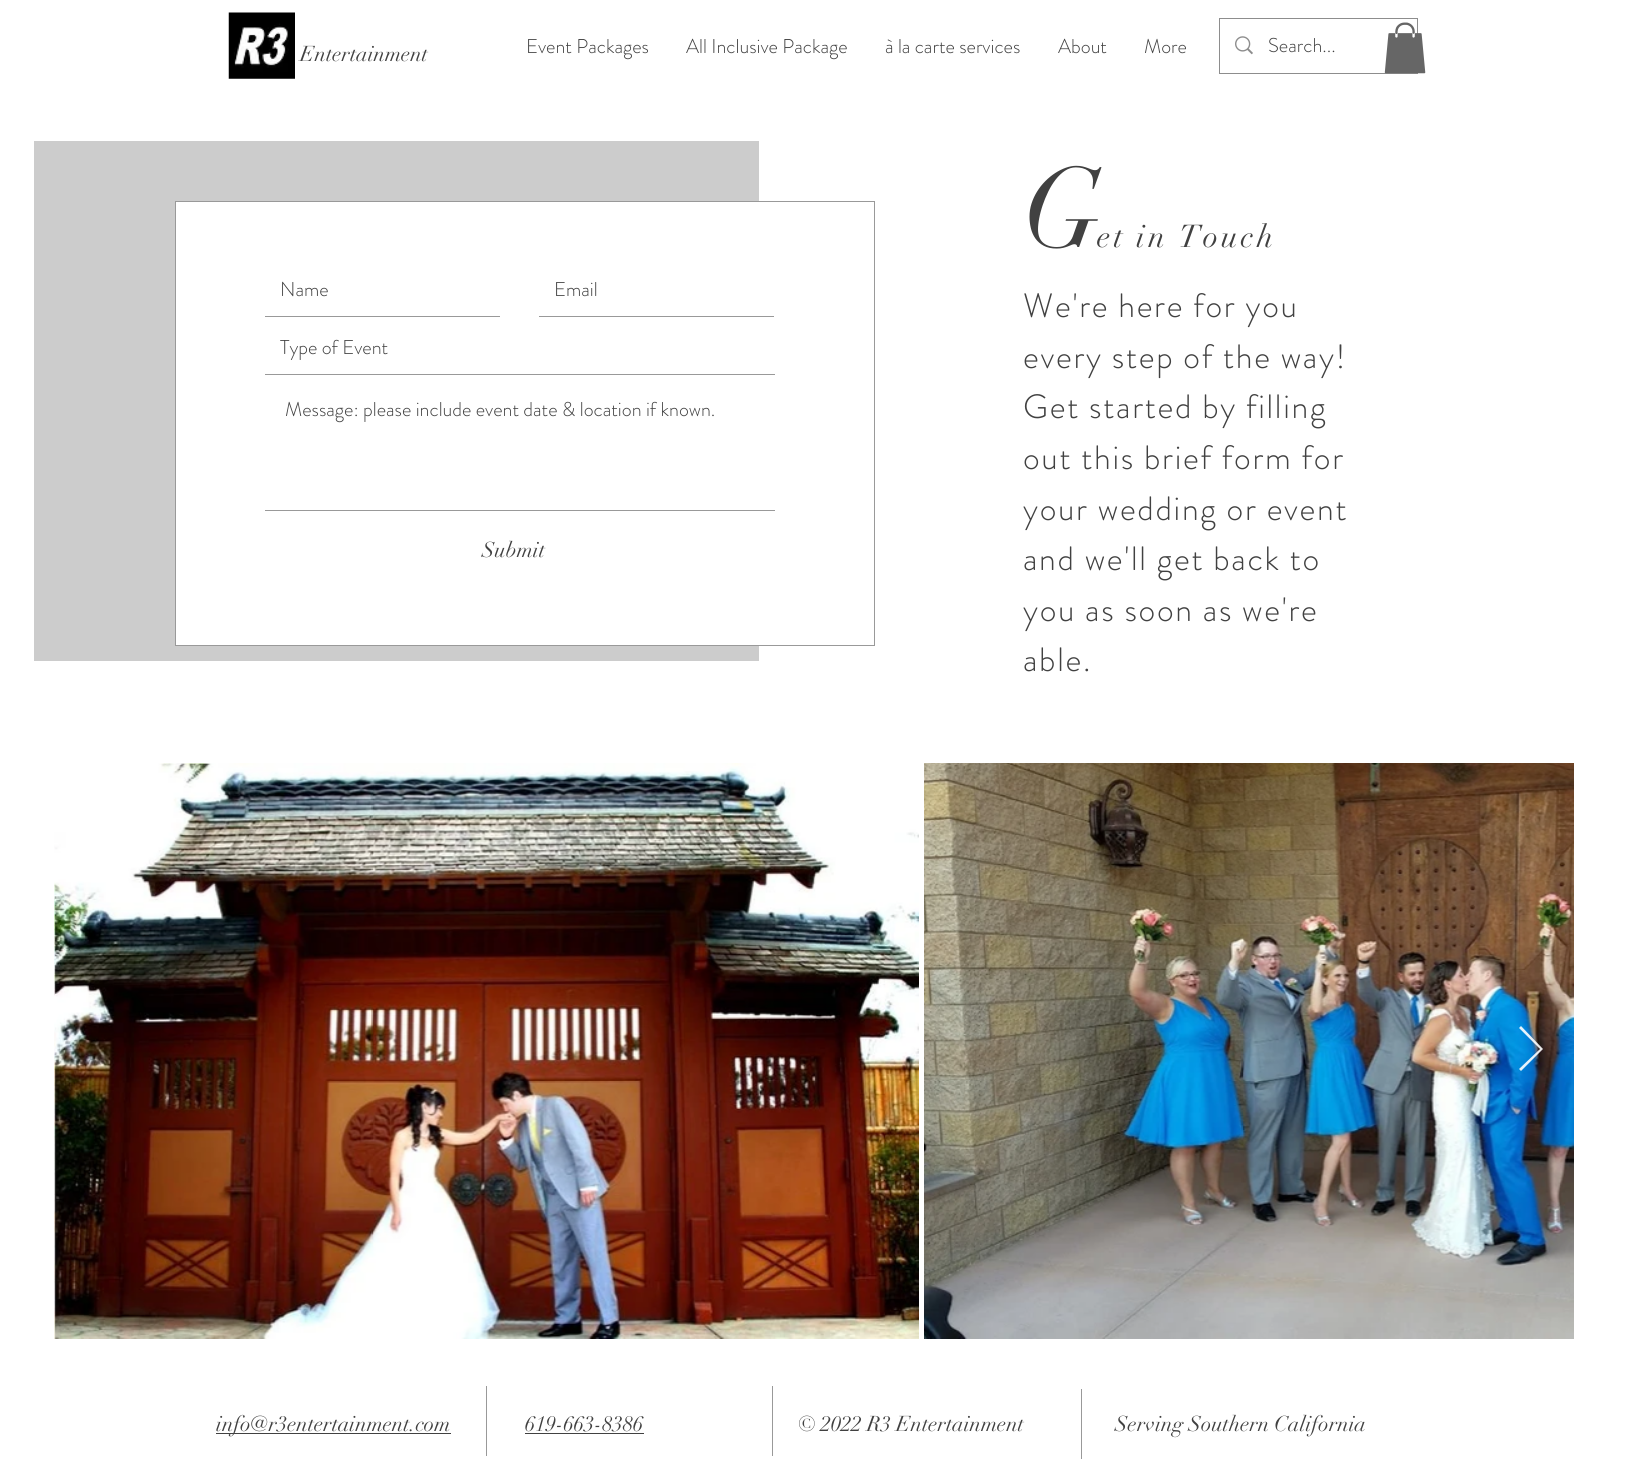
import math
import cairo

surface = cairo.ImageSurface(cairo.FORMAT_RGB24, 1627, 1459)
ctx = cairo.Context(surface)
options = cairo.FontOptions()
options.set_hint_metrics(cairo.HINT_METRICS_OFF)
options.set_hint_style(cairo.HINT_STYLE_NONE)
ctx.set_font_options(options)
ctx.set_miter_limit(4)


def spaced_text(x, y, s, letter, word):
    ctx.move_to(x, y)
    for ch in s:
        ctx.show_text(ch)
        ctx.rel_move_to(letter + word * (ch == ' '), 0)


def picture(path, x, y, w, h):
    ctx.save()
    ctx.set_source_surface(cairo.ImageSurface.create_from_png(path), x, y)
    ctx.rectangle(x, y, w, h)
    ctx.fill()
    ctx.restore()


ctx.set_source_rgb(1, 1, 1)
ctx.paint()
picture("img1.png", 228, 12, 67, 67)
ctx.select_font_face("didot")
ctx.set_font_size(21.25)
ctx.set_source_rgb(0.255, 0.255, 0.255)
ctx.move_to(300, 61)
ctx.show_text("Entertainment")
ctx.select_font_face("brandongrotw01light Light")
ctx.set_font_size(20)
ctx.move_to(526, 53)
ctx.show_text("Event Packages")
ctx.move_to(686, 53)
ctx.show_text("All Inclusive Package")
ctx.move_to(885, 53)
ctx.show_text("à la carte services")
ctx.move_to(1058, 53)
ctx.show_text("About")
ctx.move_to(1144, 53)
ctx.show_text("More")
ctx.rectangle(1219.5, 18.5, 198, 55)
ctx.set_source_rgb(0.553, 0.553, 0.553)
ctx.set_line_width(1)
ctx.stroke()
picture("img2.png", 1235, 36, 18, 19)
ctx.set_source_rgb(0.255, 0.255, 0.255)
ctx.move_to(1268, 52)
ctx.show_text("Search...")
picture("img3.png", 1384, 22, 42, 52)
ctx.set_source_rgb(0.8, 0.8, 0.8)
ctx.rectangle(34, 141, 725, 520)
ctx.fill()
ctx.select_font_face("didot")
ctx.set_font_size(112)
ctx.set_source_rgb(0.255, 0.255, 0.255)
spaced_text(1023, 247, "G", -6, 0)
ctx.set_font_size(31.25)
spaced_text(1097, 247, "et in Touch", 3.1, 0)
ctx.set_source_rgb(1, 1, 1)
ctx.rectangle(176, 202, 583, 443)
ctx.fill()
ctx.rectangle(175.5, 201.5, 699, 444)
ctx.set_source_rgb(0.6, 0.6, 0.6)
ctx.stroke()
ctx.rectangle(265, 316, 235, 1)
ctx.fill()
ctx.select_font_face("brandongrotw01light Light")
ctx.set_font_size(20)
ctx.set_source_rgb(0.255, 0.255, 0.255)
ctx.move_to(280, 296)
ctx.show_text("Name")
ctx.set_source_rgb(0.6, 0.6, 0.6)
ctx.rectangle(539, 316, 235, 1)
ctx.fill()
ctx.set_source_rgb(0.255, 0.255, 0.255)
ctx.move_to(554, 296)
ctx.show_text("Email")
ctx.set_source_rgb(0.6, 0.6, 0.6)
ctx.rectangle(265, 374, 510, 1)
ctx.fill()
ctx.set_source_rgb(0.255, 0.255, 0.255)
ctx.move_to(280, 354)
ctx.show_text("Type of Event")
ctx.set_source_rgb(0.6, 0.6, 0.6)
ctx.rectangle(265, 510, 510, 1)
ctx.fill()
ctx.set_source_rgb(0.255, 0.255, 0.255)
ctx.move_to(285, 416)
ctx.show_text("Message: please include event date & location if known.")
ctx.select_font_face("didot")
ctx.set_font_size(21.25)
ctx.move_to(482, 557)
ctx.show_text("Submit")
ctx.select_font_face("brandongrotw01light Light")
ctx.set_font_size(33.75)
spaced_text(1023, 317, "We're here for you", 1.7, 0)
spaced_text(1023, 368, "every step of the way!", 1.7, 0)
spaced_text(1023, 418, "Get started by filling", 1.7, 0)
spaced_text(1023, 469, "out this brief form for", 1.7, 0)
spaced_text(1023, 520, "your wedding or event", 1.7, 0)
spaced_text(1023, 570, "and we'll get back to", 1.7, 0)
spaced_text(1023, 621, "you as soon as we're", 1.7, 0)
spaced_text(1023, 671, "able.", 1.7, 0)
picture("img4.png", 54, 763, 865, 576)
picture("img5.png", 924, 763, 650, 576)
ctx.set_source_rgba(1, 1, 1, 0.9)
ctx.new_path()
ctx.move_to(1519, 1028)
ctx.line_to(1521, 1026)
ctx.line_to(1543, 1049)
ctx.line_to(1521, 1071)
ctx.line_to(1519, 1069)
ctx.line_to(1540, 1049)
ctx.close_path()
ctx.fill()
ctx.set_source_rgb(0.255, 0.255, 0.255)
ctx.rectangle(216, 1433, 235, 1)
ctx.fill()
ctx.select_font_face("didot")
ctx.set_font_size(21.25)
ctx.move_to(216, 1431)
ctx.show_text("info@r3entertainment.com")
ctx.set_source_rgb(0.6, 0.6, 0.6)
ctx.rectangle(486, 1386, 1, 70)
ctx.fill()
ctx.set_source_rgb(0.255, 0.255, 0.255)
ctx.move_to(525, 1431)
ctx.show_text("619-663-8386")
ctx.rectangle(525, 1433, 119, 1)
ctx.fill()
ctx.set_source_rgb(0.6, 0.6, 0.6)
ctx.rectangle(772, 1386, 1, 70)
ctx.fill()
ctx.set_source_rgb(0.255, 0.255, 0.255)
ctx.move_to(798, 1431)
ctx.show_text("© 2022 R3 Entertainment")
ctx.set_source_rgb(0.6, 0.6, 0.6)
ctx.rectangle(1081, 1389, 1, 70)
ctx.fill()
ctx.set_source_rgb(0.255, 0.255, 0.255)
ctx.move_to(1115, 1431)
ctx.show_text("Serving Southern California")
surface.write_to_png("page.png")
